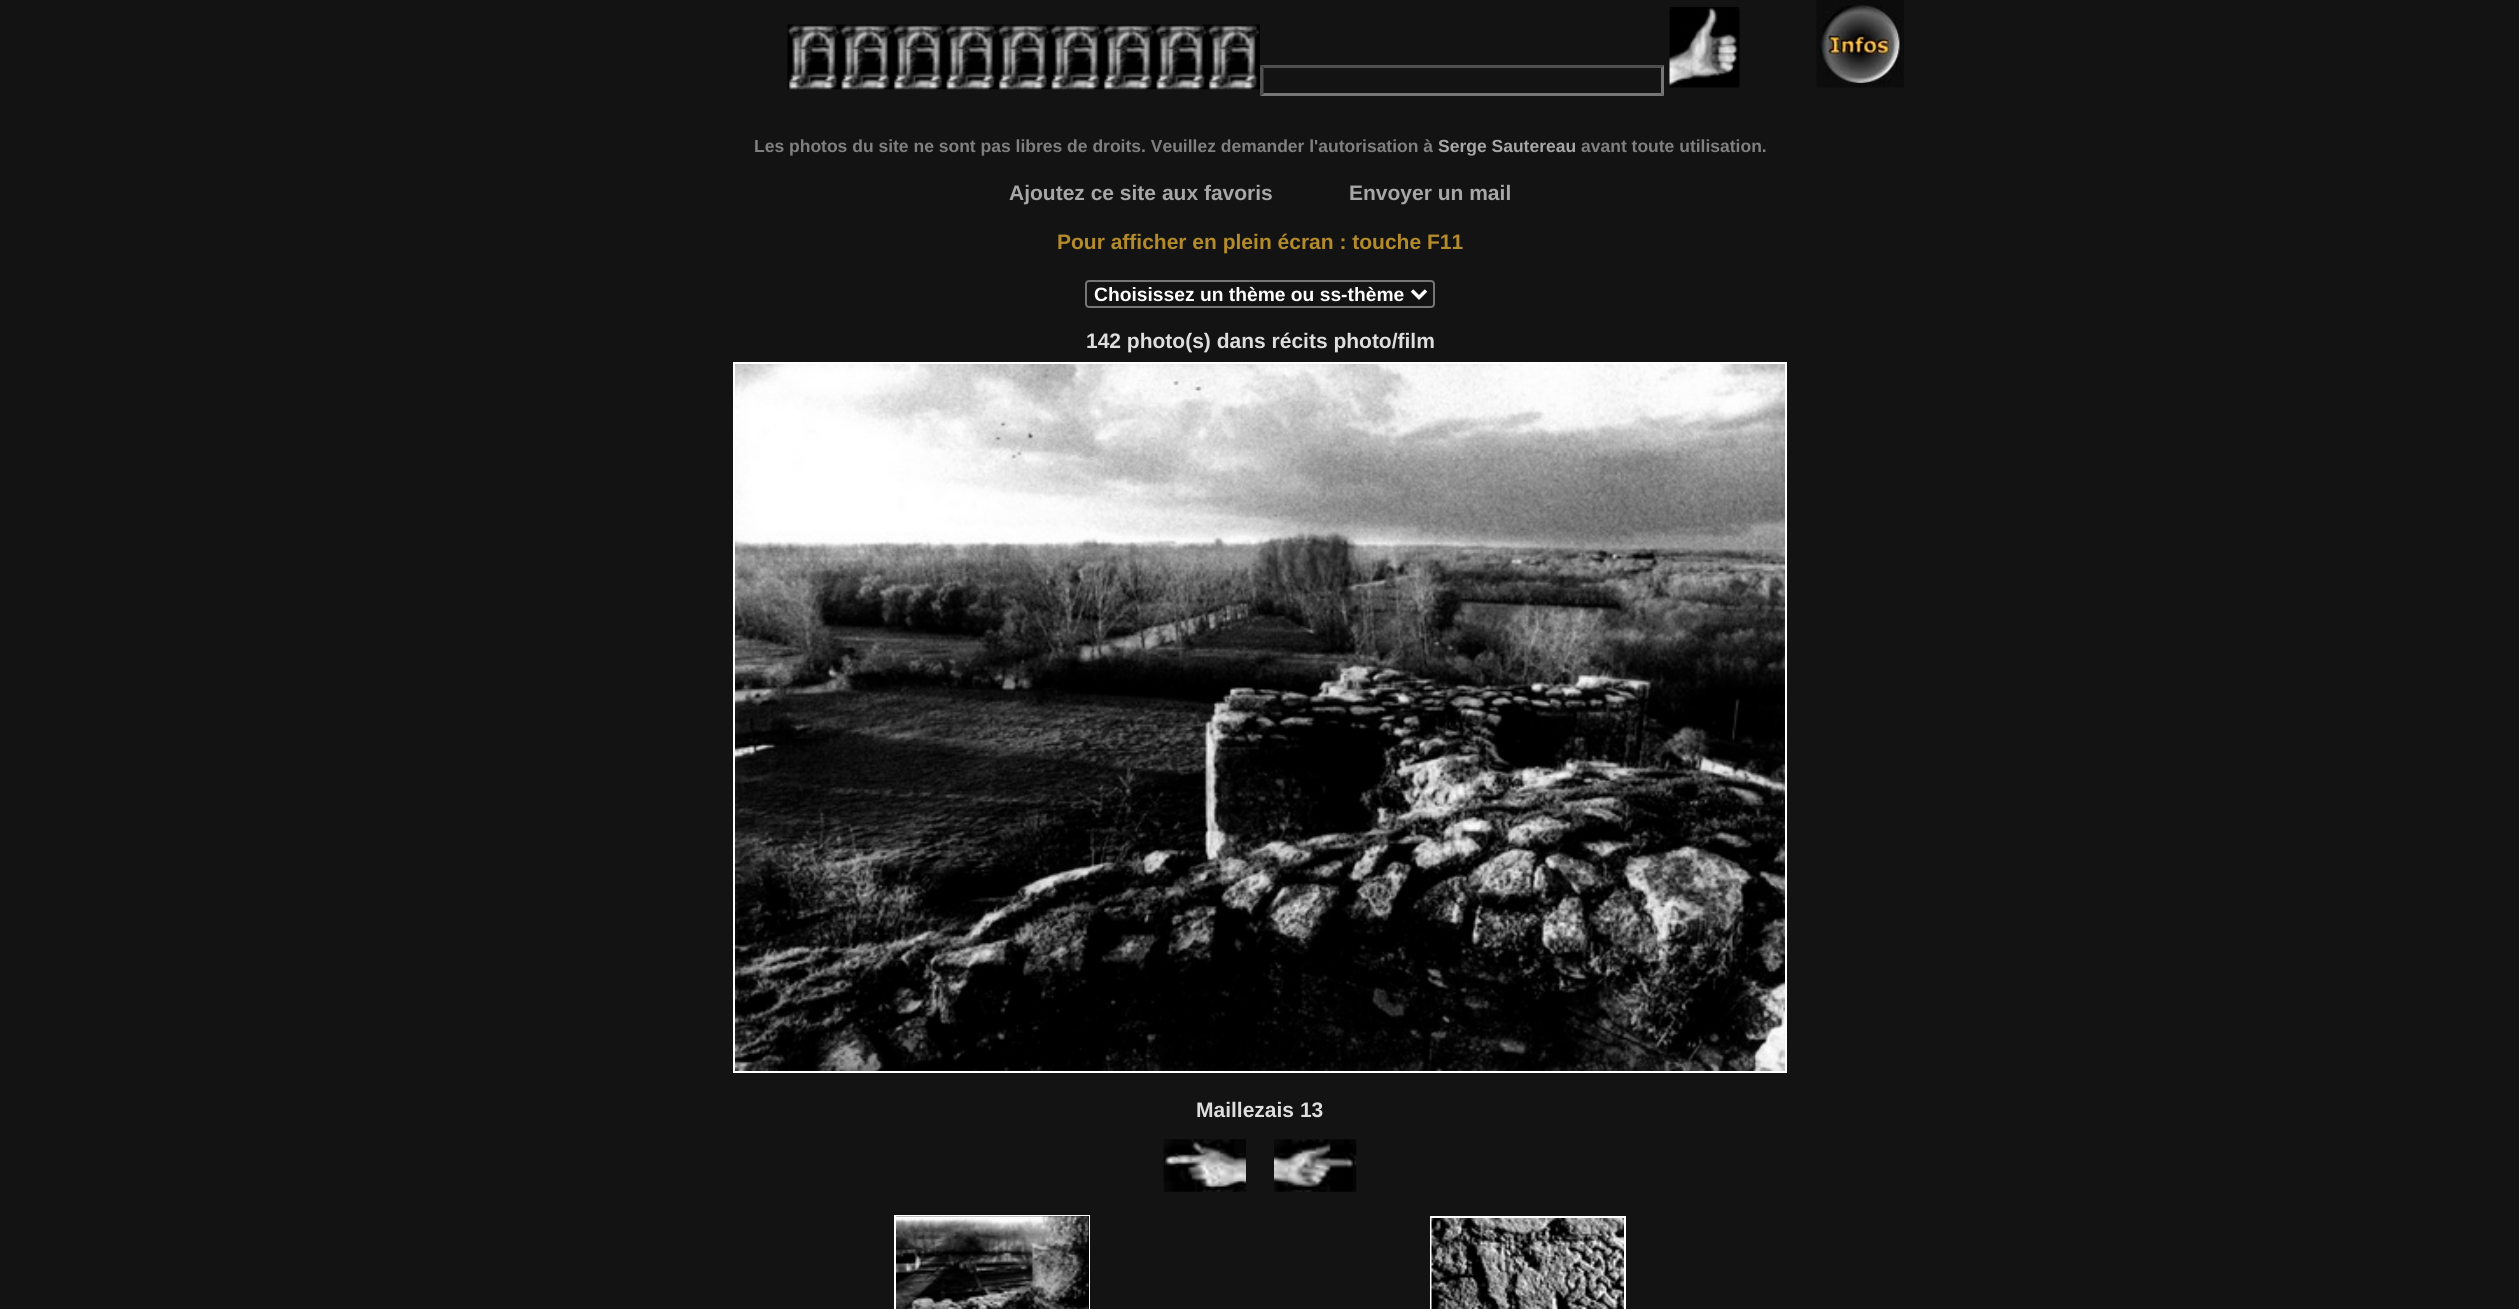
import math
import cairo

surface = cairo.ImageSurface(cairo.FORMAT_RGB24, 2519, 1309)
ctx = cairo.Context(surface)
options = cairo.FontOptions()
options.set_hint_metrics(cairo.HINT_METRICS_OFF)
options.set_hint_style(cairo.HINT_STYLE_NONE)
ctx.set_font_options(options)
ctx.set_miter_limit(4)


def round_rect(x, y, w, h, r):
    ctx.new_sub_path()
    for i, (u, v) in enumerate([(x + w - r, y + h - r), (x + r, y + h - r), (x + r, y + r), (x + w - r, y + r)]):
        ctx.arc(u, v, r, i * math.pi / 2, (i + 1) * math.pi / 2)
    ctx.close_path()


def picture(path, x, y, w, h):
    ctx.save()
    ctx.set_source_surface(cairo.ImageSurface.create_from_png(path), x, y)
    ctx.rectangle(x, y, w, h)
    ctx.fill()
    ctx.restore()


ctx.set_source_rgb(0.078, 0.078, 0.078)
ctx.paint()
picture("img1.png", 787, 24, 53, 66)
picture("img2.png", 840, 24, 53, 66)
picture("img3.png", 892, 24, 53, 66)
picture("img2.png", 945, 24, 53, 66)
picture("img4.png", 997, 24, 53, 66)
picture("img5.png", 1050, 24, 53, 66)
picture("img6.png", 1102, 24, 53, 66)
picture("img2.png", 1155, 24, 53, 66)
picture("img6.png", 1207, 24, 53, 66)
ctx.set_source_rgb(0.31, 0.31, 0.31)
ctx.new_path()
ctx.move_to(1260, 65)
ctx.line_to(1664, 65)
ctx.line_to(1661, 68)
ctx.line_to(1264, 68)
ctx.close_path()
ctx.fill()
ctx.set_source_rgb(0.463, 0.463, 0.463)
ctx.new_path()
ctx.move_to(1664, 65)
ctx.line_to(1664, 96)
ctx.line_to(1661, 93)
ctx.line_to(1661, 68)
ctx.close_path()
ctx.fill()
ctx.new_path()
ctx.move_to(1664, 96)
ctx.line_to(1260, 96)
ctx.line_to(1264, 93)
ctx.line_to(1661, 93)
ctx.close_path()
ctx.fill()
ctx.set_source_rgb(0.31, 0.31, 0.31)
ctx.new_path()
ctx.move_to(1260, 96)
ctx.line_to(1260, 65)
ctx.line_to(1263.5, 68)
ctx.line_to(1263.5, 93)
ctx.close_path()
ctx.fill()
picture("img7.png", 1669, 7, 71, 81)
picture("img8.png", 1816, 0, 88, 88)
ctx.select_font_face("Liberation Sans", cairo.FONT_SLANT_NORMAL, cairo.FONT_WEIGHT_BOLD)
ctx.set_font_size(17.5)
ctx.set_source_rgb(0.502, 0.502, 0.502)
ctx.move_to(754, 152)
ctx.show_text("Les photos du site ne sont pas libres de droits. Veuillez demander l'autorisation à")
ctx.set_source_rgb(0.655, 0.655, 0.655)
ctx.move_to(1438, 152)
ctx.show_text("Serge Sautereau")
ctx.set_source_rgb(0.502, 0.502, 0.502)
ctx.move_to(1581, 152)
ctx.show_text("avant toute utilisation.")
ctx.set_font_size(21)
ctx.set_source_rgb(0.655, 0.655, 0.655)
ctx.move_to(1009, 200)
ctx.show_text("Ajoutez ce site aux favoris")
ctx.move_to(1349, 200)
ctx.show_text("Envoyer un mail")
ctx.set_source_rgb(0.702, 0.545, 0.165)
ctx.move_to(1057, 249)
ctx.show_text("Pour afficher en plein écran : touche F11")
round_rect(1086, 281, 348, 26, 3)
ctx.set_source_rgb(0.463, 0.463, 0.463)
ctx.stroke()
ctx.new_path()
ctx.move_to(1412, 290.5)
ctx.line_to(1419, 297.5)
ctx.line_to(1426, 290.5)
ctx.set_source_rgb(1, 1, 1)
ctx.set_line_width(3.5)
ctx.stroke()
ctx.set_font_size(19.25)
ctx.move_to(1094, 301)
ctx.show_text("Choisissez un thème ou ss-thème")
ctx.set_font_size(21)
ctx.set_source_rgb(0.871, 0.871, 0.871)
ctx.move_to(1086, 348)
ctx.show_text("142 photo(s) dans récits photo/film")
ctx.set_source_rgb(1, 1, 1)
ctx.rectangle(733, 362, 1054, 711)
ctx.fill()
picture("img9.png", 735, 364, 1050, 707)
ctx.set_source_rgb(0.871, 0.871, 0.871)
ctx.move_to(1196, 1117)
ctx.show_text("Maillezais 13")
picture("img10.png", 1163, 1139, 83, 53)
picture("img11.png", 1274, 1139, 83, 53)
ctx.set_source_rgb(1, 1, 1)
ctx.rectangle(894, 1215, 196, 94)
ctx.fill()
ctx.set_source_rgb(0, 0, 0)
ctx.rectangle(896, 1216, 193, 93)
ctx.fill()
picture("img12.png", 896, 1216, 193, 93)
ctx.set_source_rgb(1, 1, 1)
ctx.rectangle(1430, 1216, 196, 93)
ctx.fill()
picture("img13.png", 1431, 1218, 193, 91)
surface.write_to_png("page.png")
